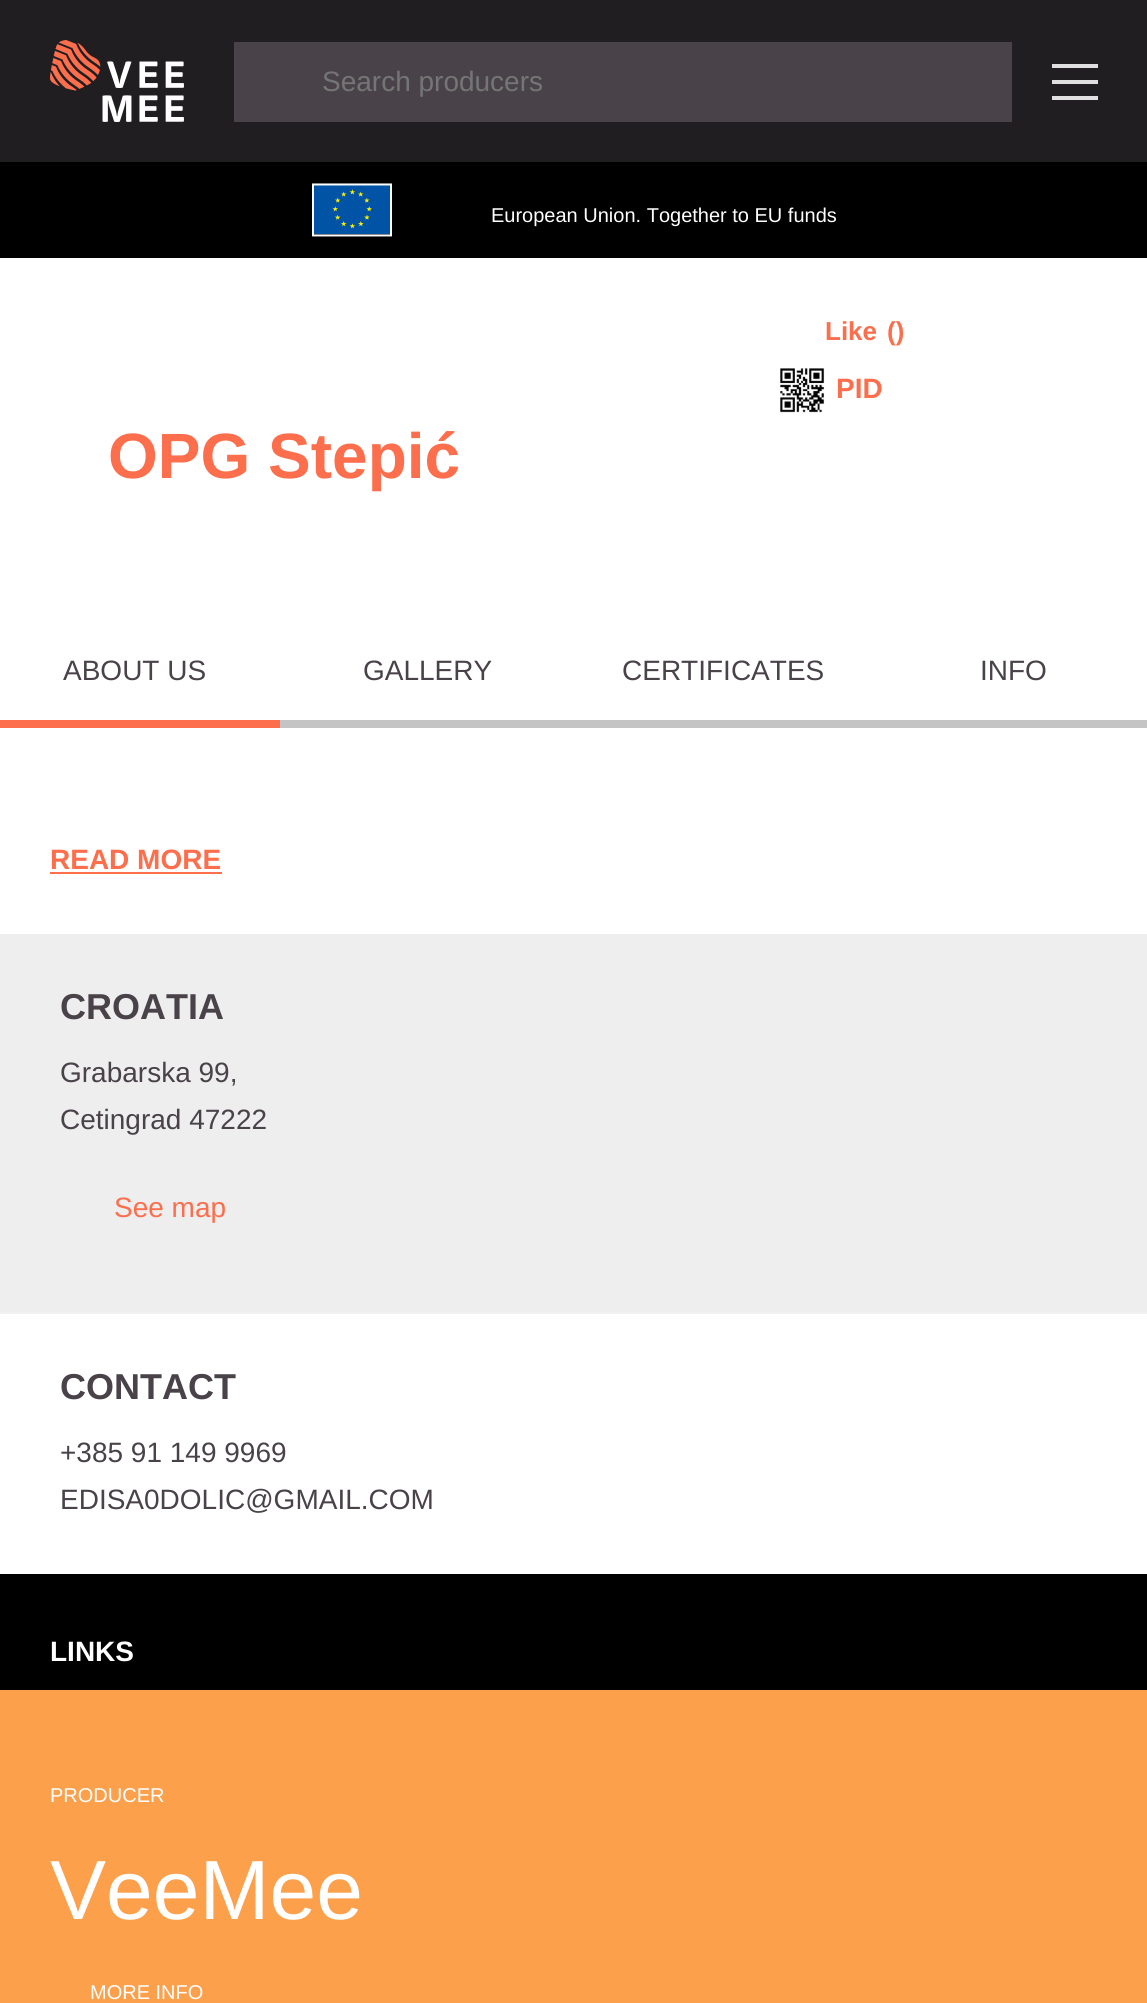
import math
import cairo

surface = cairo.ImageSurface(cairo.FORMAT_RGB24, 1147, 2003)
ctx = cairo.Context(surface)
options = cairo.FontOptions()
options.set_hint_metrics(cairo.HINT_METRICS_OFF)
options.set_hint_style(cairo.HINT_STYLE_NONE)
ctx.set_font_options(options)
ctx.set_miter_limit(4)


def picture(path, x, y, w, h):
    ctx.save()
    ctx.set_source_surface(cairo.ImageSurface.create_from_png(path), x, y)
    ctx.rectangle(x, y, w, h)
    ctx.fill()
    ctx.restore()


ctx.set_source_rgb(1, 1, 1)
ctx.paint()
ctx.set_source_rgb(0.129, 0.118, 0.129)
ctx.rectangle(0, 0, 1147, 162)
ctx.fill()
picture("img1.png", 50, 40, 134, 82)
ctx.set_source_rgb(0.286, 0.263, 0.286)
ctx.rectangle(234, 42, 778, 80)
ctx.fill()
ctx.select_font_face("Liberation Sans")
ctx.set_font_size(28)
ctx.set_source_rgb(0.459, 0.459, 0.459)
ctx.move_to(322, 91)
ctx.show_text("Search producers")
ctx.set_source_rgb(0.878, 0.878, 0.878)
ctx.rectangle(1052, 64, 46, 4)
ctx.fill()
ctx.rectangle(1052, 80, 46, 4)
ctx.fill()
ctx.rectangle(1052, 96, 46, 4)
ctx.fill()
ctx.set_source_rgb(0, 0, 0)
ctx.rectangle(0, 162, 1147, 96)
ctx.fill()
picture("img2.png", 312, 183, 80, 54)
ctx.set_font_size(20)
ctx.set_source_rgb(1, 1, 1)
ctx.move_to(491, 222)
ctx.show_text("European Union. Together to EU funds")
ctx.select_font_face("Liberation Sans", cairo.FONT_SLANT_NORMAL, cairo.FONT_WEIGHT_BOLD)
ctx.set_font_size(26)
ctx.set_source_rgb(0.988, 0.431, 0.298)
ctx.move_to(825, 340)
ctx.show_text("Like")
ctx.move_to(887, 340)
ctx.show_text("()")
picture("img3.png", 780, 368, 45, 45)
ctx.set_font_size(28)
ctx.move_to(836, 398)
ctx.show_text("PID")
ctx.set_font_size(64)
ctx.move_to(108, 478)
ctx.show_text("OPG Stepić")
ctx.rectangle(0, 720, 280, 8)
ctx.fill()
ctx.select_font_face("Liberation Sans")
ctx.set_font_size(28)
ctx.set_source_rgb(0.286, 0.263, 0.286)
ctx.move_to(63, 680)
ctx.show_text("ABOUT US")
ctx.set_source_rgb(0.769, 0.769, 0.769)
ctx.rectangle(280, 720, 867, 8)
ctx.fill()
ctx.set_source_rgb(0.286, 0.263, 0.286)
ctx.move_to(363, 680)
ctx.show_text("GALLERY")
ctx.move_to(622, 680)
ctx.show_text("CERTIFICATES")
ctx.move_to(980, 680)
ctx.show_text("INFO")
ctx.select_font_face("Liberation Sans", cairo.FONT_SLANT_NORMAL, cairo.FONT_WEIGHT_BOLD)
ctx.set_source_rgb(0.988, 0.431, 0.298)
ctx.move_to(50, 869)
ctx.show_text("READ MORE")
ctx.rectangle(50, 872, 172, 2)
ctx.fill()
ctx.set_source_rgb(0.945, 0.945, 0.945)
ctx.rectangle(0, 1312, 1147, 2)
ctx.fill()
ctx.set_source_rgb(0.933, 0.933, 0.933)
ctx.rectangle(0, 934, 1147, 378)
ctx.fill()
ctx.set_font_size(36)
ctx.set_source_rgb(0.286, 0.263, 0.286)
ctx.move_to(60, 1019)
ctx.show_text("CROATIA")
ctx.select_font_face("Liberation Sans")
ctx.set_font_size(28)
ctx.move_to(60, 1082)
ctx.show_text("Grabarska 99,")
ctx.move_to(60, 1129)
ctx.show_text("Cetingrad 47222")
ctx.set_source_rgb(0.988, 0.431, 0.298)
ctx.move_to(114, 1217)
ctx.show_text("See map")
ctx.select_font_face("Liberation Sans", cairo.FONT_SLANT_NORMAL, cairo.FONT_WEIGHT_BOLD)
ctx.set_font_size(36)
ctx.set_source_rgb(0.286, 0.263, 0.286)
ctx.move_to(60, 1399)
ctx.show_text("CONTACT")
ctx.select_font_face("Liberation Sans")
ctx.set_font_size(28)
ctx.move_to(60, 1462)
ctx.show_text("+385 91 149 9969")
ctx.move_to(60, 1509)
ctx.show_text("EDISA0DOLIC@GMAIL.COM")
ctx.set_source_rgb(0, 0, 0)
ctx.rectangle(0, 1574, 1147, 116)
ctx.fill()
ctx.select_font_face("Liberation Sans", cairo.FONT_SLANT_NORMAL, cairo.FONT_WEIGHT_BOLD)
ctx.set_source_rgb(1, 1, 1)
ctx.move_to(50, 1661)
ctx.show_text("LINKS")
ctx.set_source_rgb(0.988, 0.627, 0.298)
ctx.rectangle(0, 1690, 1147, 313)
ctx.fill()
ctx.select_font_face("Liberation Sans")
ctx.set_font_size(20)
ctx.set_source_rgb(1, 1, 1)
ctx.move_to(50, 1802)
ctx.show_text("PRODUCER")
ctx.set_font_size(84)
ctx.move_to(50, 1919)
ctx.show_text("VeeMee")
ctx.set_font_size(20)
ctx.move_to(90, 1999)
ctx.show_text("MORE INFO")
surface.write_to_png("page.png")
